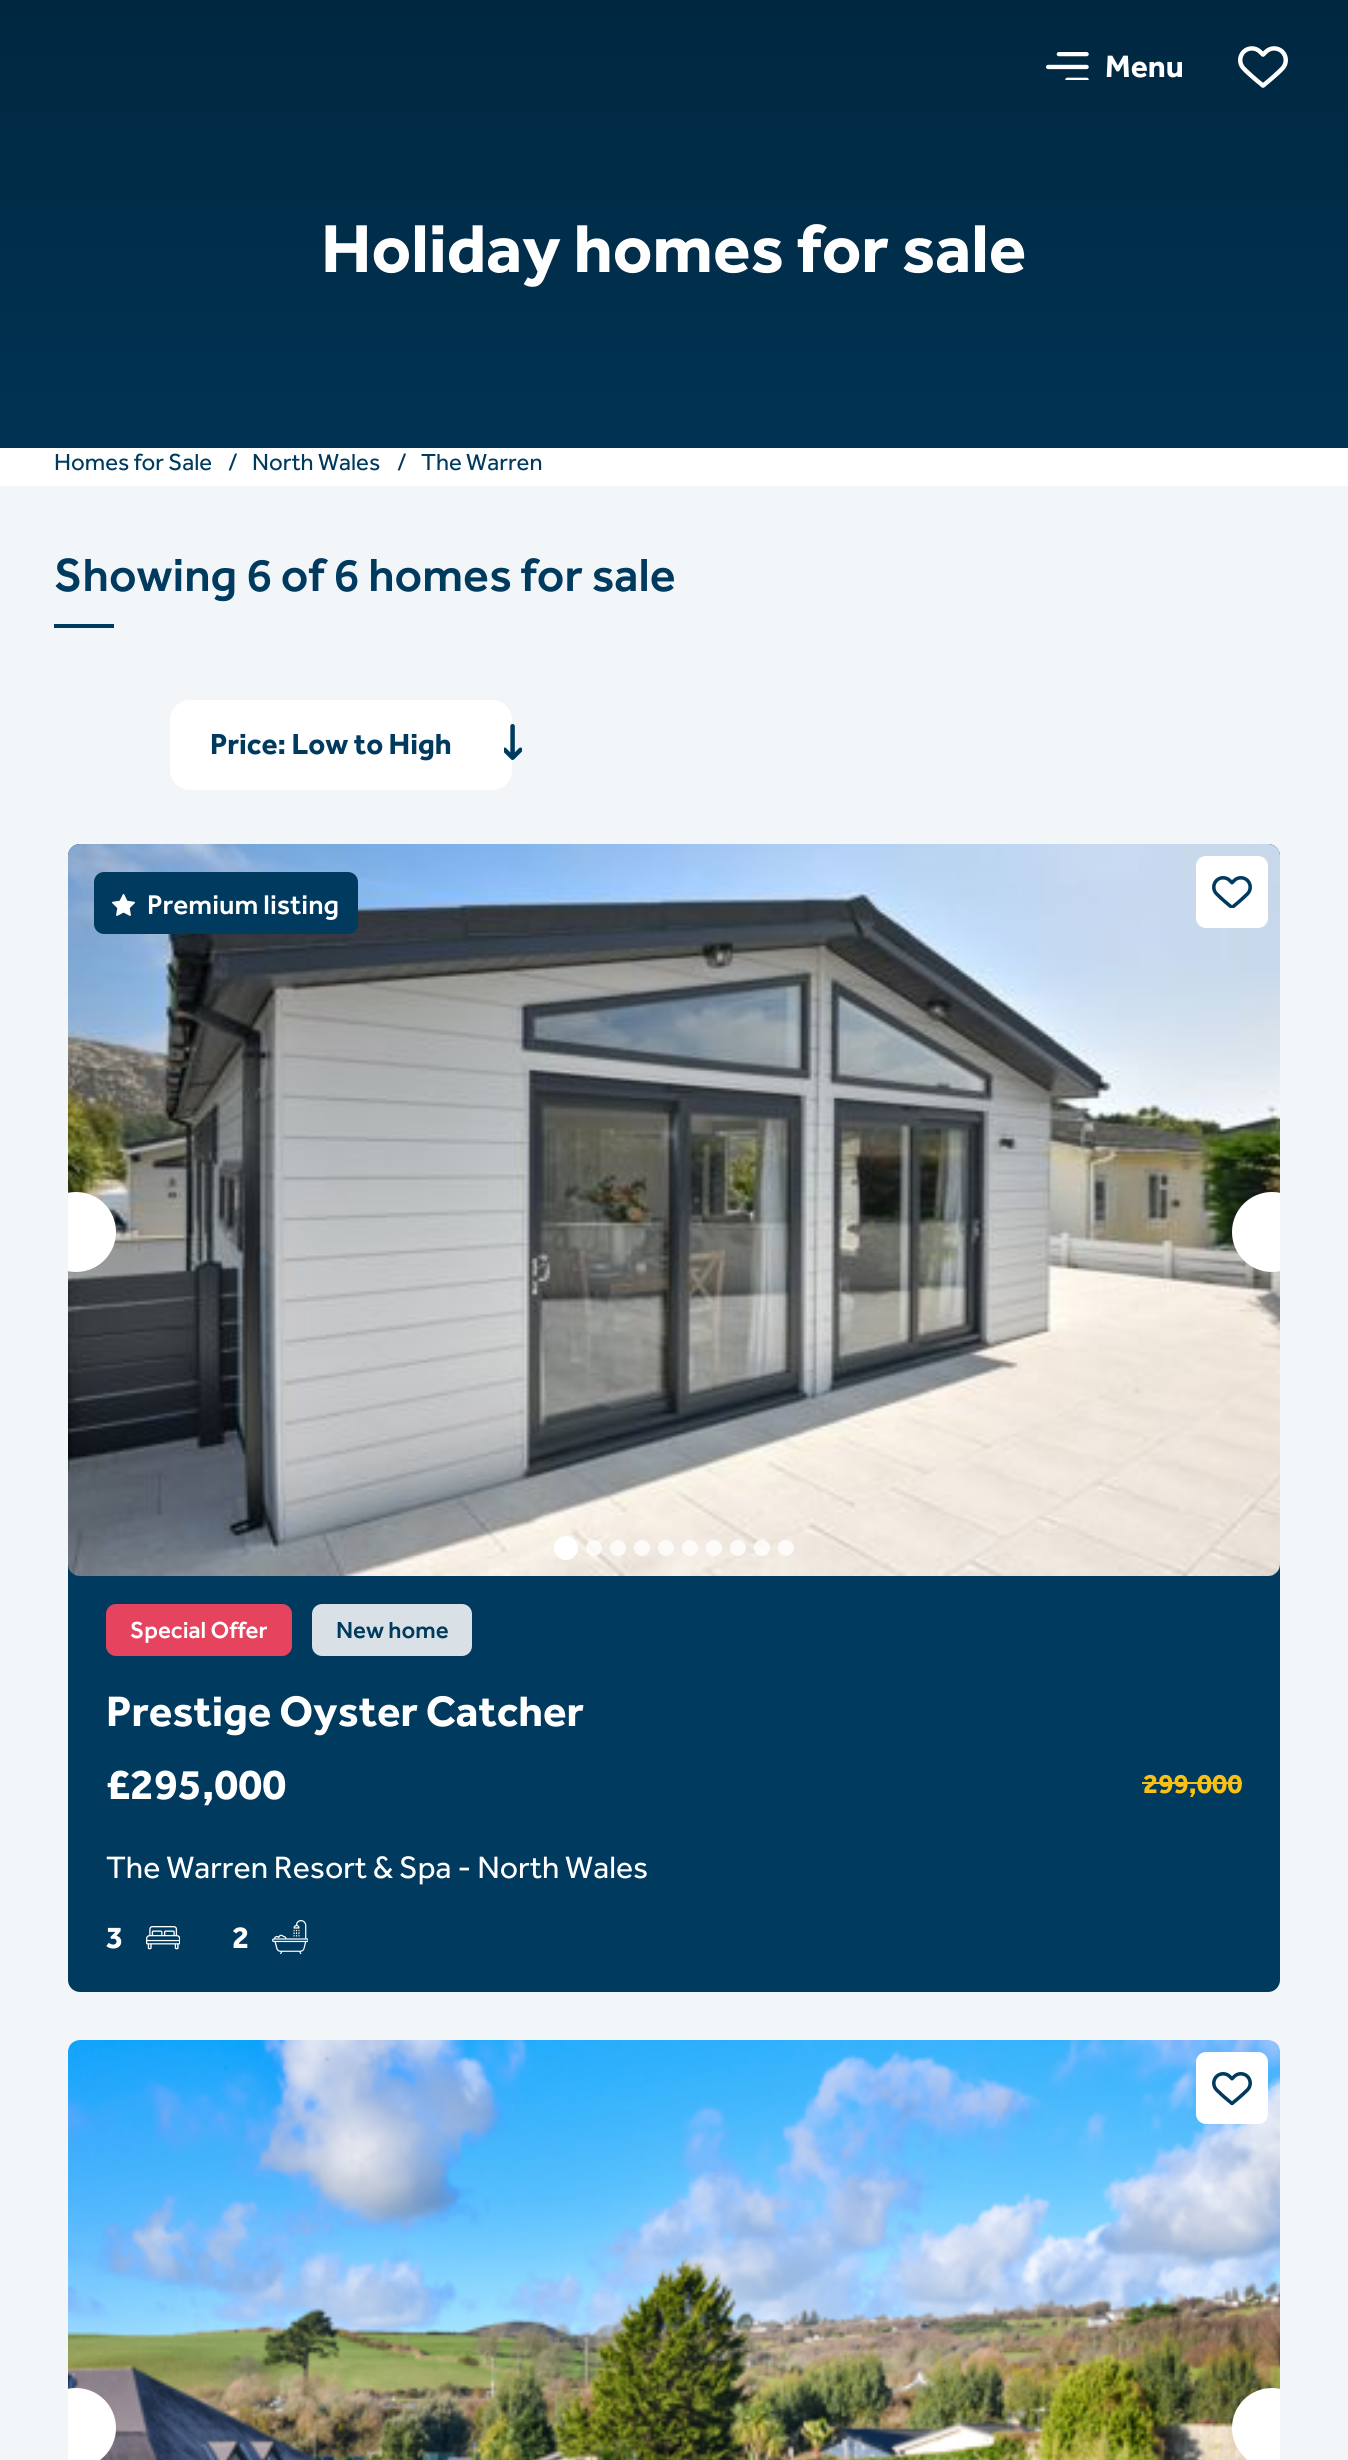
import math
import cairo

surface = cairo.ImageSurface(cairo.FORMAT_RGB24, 1348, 2460)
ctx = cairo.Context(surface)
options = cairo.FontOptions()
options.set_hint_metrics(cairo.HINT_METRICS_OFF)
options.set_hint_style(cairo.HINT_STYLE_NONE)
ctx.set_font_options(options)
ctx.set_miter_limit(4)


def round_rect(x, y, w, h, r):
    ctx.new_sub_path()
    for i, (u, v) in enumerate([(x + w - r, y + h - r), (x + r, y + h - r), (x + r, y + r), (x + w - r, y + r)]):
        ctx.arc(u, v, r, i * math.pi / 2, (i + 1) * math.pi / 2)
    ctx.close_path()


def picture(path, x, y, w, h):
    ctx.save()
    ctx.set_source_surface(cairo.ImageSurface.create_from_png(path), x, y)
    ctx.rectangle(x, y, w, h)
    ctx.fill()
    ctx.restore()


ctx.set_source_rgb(1, 1, 1)
ctx.paint()
gradient = cairo.LinearGradient(674, 0, 674, 448)
gradient.add_color_stop_rgba(0, 0, 0.153, 0.251, 1)
gradient.add_color_stop_rgba(1, 0, 0.2, 0.325, 1)
ctx.set_source(gradient)
ctx.rectangle(0, 0, 1348, 448)
ctx.fill()
picture("img1.png", 1046, 52, 43, 28)
ctx.select_font_face("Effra", cairo.FONT_SLANT_NORMAL, cairo.FONT_WEIGHT_BOLD)
ctx.set_font_size(32)
ctx.set_source_rgb(1, 1, 1)
ctx.move_to(1105, 77)
ctx.show_text("Menu")
picture("img2.png", 1238, 46, 50, 42)
ctx.set_font_size(70)
ctx.move_to(321, 272)
ctx.show_text("Holiday homes for sale")
ctx.select_font_face("Effra")
ctx.set_font_size(24)
ctx.set_source_rgb(0, 0.227, 0.369)
ctx.move_to(54, 470)
ctx.show_text("Homes for Sale")
ctx.move_to(228, 470)
ctx.show_text("/")
ctx.move_to(252, 470)
ctx.show_text("North Wales")
ctx.move_to(397, 470)
ctx.show_text("/")
ctx.move_to(421, 470)
ctx.show_text("The Warren")
ctx.set_source_rgb(0.953, 0.961, 0.969)
ctx.rectangle(0, 486, 1348, 1974)
ctx.fill()
ctx.select_font_face("Effra Medium")
ctx.set_font_size(48)
ctx.set_source_rgb(0, 0.227, 0.369)
ctx.move_to(54, 591)
ctx.show_text("Showing 6 of 6 homes for sale")
ctx.rectangle(54, 624, 60, 4)
ctx.fill()
ctx.set_source_rgb(1, 1, 1)
round_rect(170, 700, 342, 90, 20)
ctx.fill()
ctx.select_font_face("Effra", cairo.FONT_SLANT_NORMAL, cairo.FONT_WEIGHT_BOLD)
ctx.set_font_size(30)
ctx.set_source_rgb(0, 0.227, 0.369)
ctx.move_to(210, 754)
ctx.show_text("Price: Low to High")
picture("img3.png", 504, 724, 18, 36)
round_rect(68, 844, 1212, 1148, 12)
ctx.fill()
picture("img4.png", 68, 844, 1212, 732)
ctx.set_source_rgb(1, 1, 1)
ctx.arc(566, 1548, 12, 0, 2 * math.pi)
ctx.fill()
ctx.set_source_rgba(1, 1, 1, 0.8)
ctx.arc(594, 1548, 8, 0, 2 * math.pi)
ctx.fill()
ctx.arc(618, 1548, 8, 0, 2 * math.pi)
ctx.fill()
ctx.arc(642, 1548, 8, 0, 2 * math.pi)
ctx.fill()
ctx.arc(666, 1548, 8, 0, 2 * math.pi)
ctx.fill()
ctx.arc(690, 1548, 8, 0, 2 * math.pi)
ctx.fill()
ctx.arc(714, 1548, 8, 0, 2 * math.pi)
ctx.fill()
ctx.arc(738, 1548, 8, 0, 2 * math.pi)
ctx.fill()
ctx.arc(762, 1548, 8, 0, 2 * math.pi)
ctx.fill()
ctx.arc(786, 1548, 8, 0, 2 * math.pi)
ctx.fill()
ctx.save()
round_rect(68, 844, 1212, 732, 12)
ctx.clip()
ctx.set_source_rgb(1, 1, 1)
ctx.arc(76, 1232, 40, 0, 2 * math.pi)
ctx.fill()
ctx.arc(1272, 1232, 40, 0, 2 * math.pi)
ctx.fill()
ctx.restore()
ctx.set_source_rgb(0, 0.227, 0.369)
round_rect(94, 872, 264, 62, 10)
ctx.fill()
picture("img5.png", 112, 894, 23, 22)
ctx.select_font_face("Effra Medium")
ctx.set_font_size(28)
ctx.set_source_rgb(1, 1, 1)
ctx.move_to(147, 914)
ctx.show_text("Premium listing")
round_rect(1196, 856, 72, 72, 10)
ctx.fill()
picture("img6.png", 1212, 876, 40, 32)
ctx.set_source_rgb(0.902, 0.263, 0.373)
round_rect(106, 1604, 186, 52, 10)
ctx.fill()
ctx.set_font_size(24)
ctx.set_source_rgb(1, 1, 1)
ctx.move_to(130, 1638)
ctx.show_text("Special Offer")
ctx.set_source_rgb(0.851, 0.882, 0.906)
round_rect(312, 1604, 160, 52, 10)
ctx.fill()
ctx.set_source_rgb(0, 0.227, 0.369)
ctx.move_to(336, 1638)
ctx.show_text("New home")
ctx.select_font_face("Effra", cairo.FONT_SLANT_NORMAL, cairo.FONT_WEIGHT_BOLD)
ctx.set_font_size(44)
ctx.set_source_rgb(1, 1, 1)
ctx.move_to(106, 1726)
ctx.show_text("Prestige Oyster Catcher")
ctx.move_to(106, 1799)
ctx.show_text("£295,000")
ctx.set_font_size(28)
ctx.set_source_rgb(0.976, 0.757, 0.086)
ctx.move_to(1143, 1793)
ctx.show_text("299,000")
ctx.rectangle(1142, 1782, 100, 2)
ctx.fill()
ctx.select_font_face("Effra")
ctx.set_font_size(32)
ctx.set_source_rgb(1, 1, 1)
ctx.move_to(106, 1878)
ctx.show_text("The Warren Resort & Spa - North Wales")
ctx.select_font_face("Effra", cairo.FONT_SLANT_NORMAL, cairo.FONT_WEIGHT_BOLD)
ctx.move_to(106, 1948)
ctx.show_text("3")
picture("img7.png", 146, 1926, 34, 24)
ctx.move_to(232, 1948)
ctx.show_text("2")
picture("img8.png", 272, 1920, 36, 34)
picture("img9.png", 68, 2040, 1212, 420)
ctx.save()
round_rect(68, 2040, 1212, 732, 12)
ctx.clip()
ctx.arc(76, 2428, 40, 0, 2 * math.pi)
ctx.fill()
ctx.arc(1272, 2428, 40, 0, 2 * math.pi)
ctx.fill()
ctx.restore()
round_rect(1196, 2052, 72, 72, 10)
ctx.fill()
picture("img10.png", 1212, 2072, 40, 34)
surface.write_to_png("page.png")
